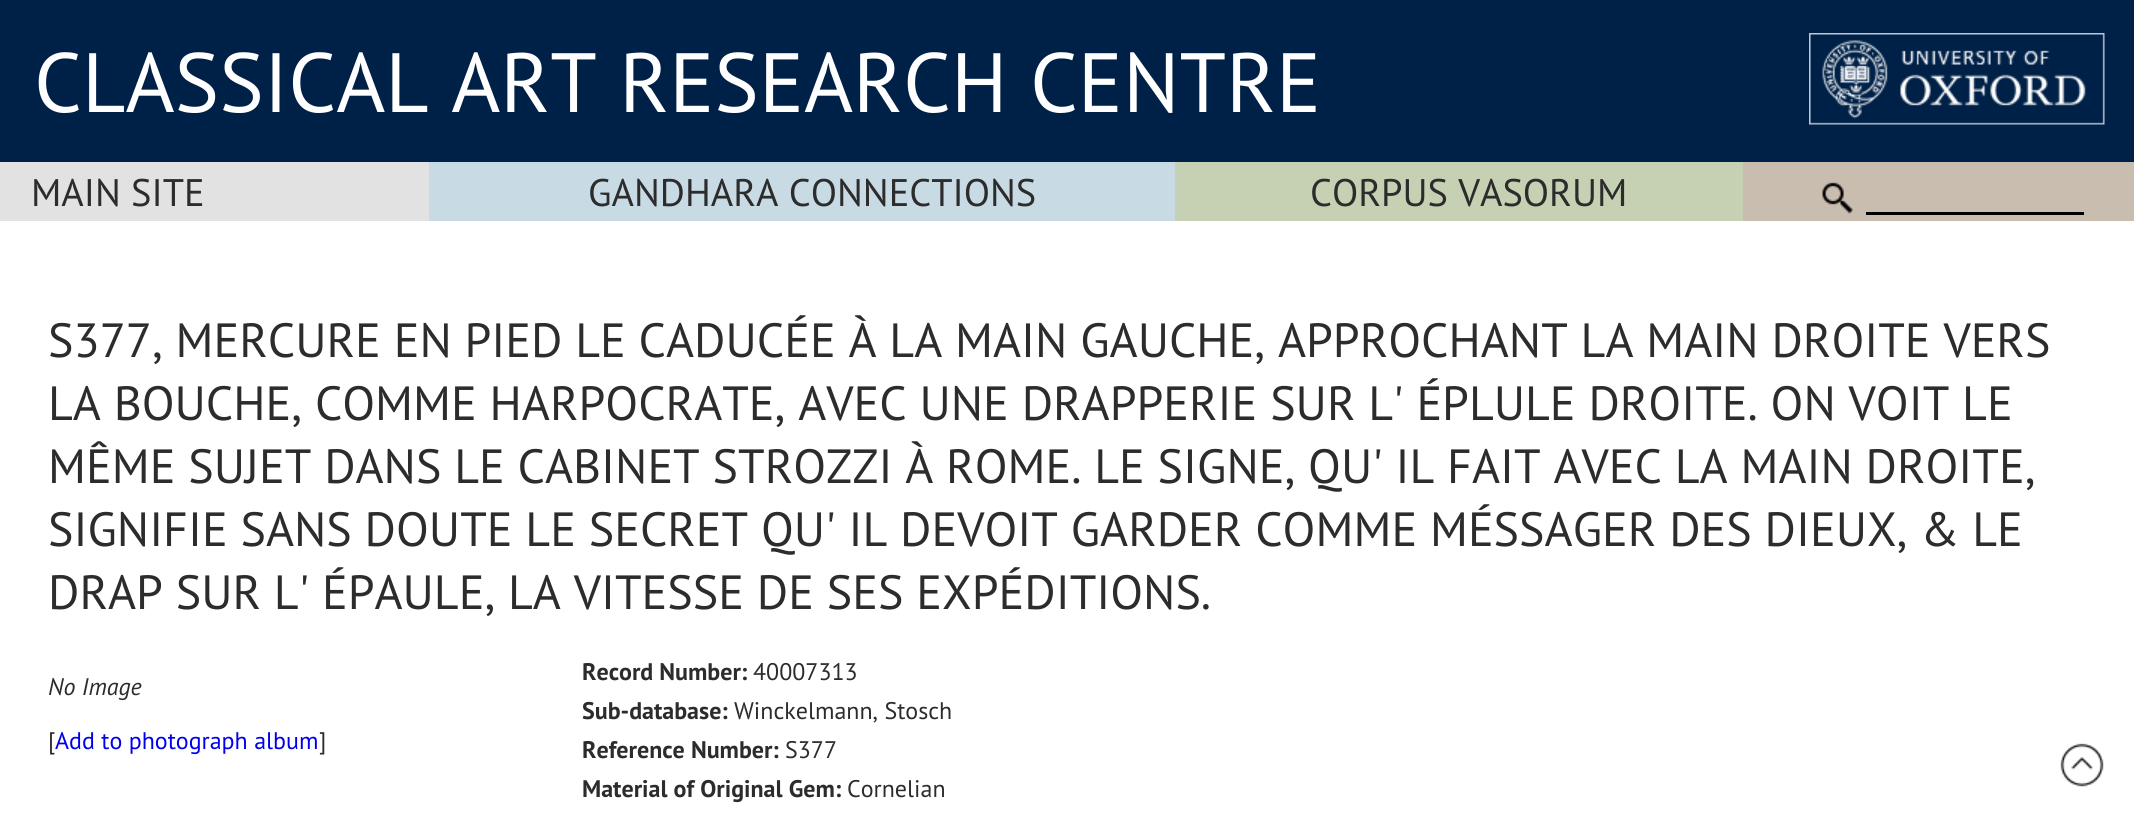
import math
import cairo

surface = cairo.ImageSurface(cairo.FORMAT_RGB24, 2134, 823)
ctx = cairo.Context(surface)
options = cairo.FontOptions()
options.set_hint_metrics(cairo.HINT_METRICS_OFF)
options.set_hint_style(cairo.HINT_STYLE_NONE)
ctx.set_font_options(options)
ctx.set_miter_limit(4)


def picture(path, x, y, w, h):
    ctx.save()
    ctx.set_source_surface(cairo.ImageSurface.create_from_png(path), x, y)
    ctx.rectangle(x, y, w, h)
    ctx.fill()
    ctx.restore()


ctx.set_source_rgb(1, 1, 1)
ctx.paint()
ctx.set_source_rgb(0, 0.129, 0.278)
ctx.rectangle(0, 0, 2134, 162)
ctx.fill()
ctx.select_font_face("PT Sans")
ctx.set_font_size(84)
ctx.set_source_rgb(1, 1, 1)
ctx.move_to(34, 112)
ctx.show_text("CLASSICAL ART RESEARCH CENTRE")
picture("img1.png", 1809, 33, 296, 92)
ctx.set_source_rgb(0.886, 0.886, 0.886)
ctx.rectangle(0, 162, 429, 59)
ctx.fill()
ctx.set_font_size(38.4)
ctx.set_source_rgb(0.173, 0.173, 0.173)
ctx.move_to(31, 206)
ctx.show_text("MAIN SITE")
ctx.set_source_rgb(0.784, 0.859, 0.898)
ctx.rectangle(429, 162, 746, 59)
ctx.fill()
ctx.set_source_rgb(0.173, 0.173, 0.173)
ctx.move_to(588, 206)
ctx.show_text("GANDHARA CONNECTIONS")
ctx.set_source_rgb(0.773, 0.82, 0.698)
ctx.rectangle(1175, 162, 568, 59)
ctx.fill()
ctx.set_source_rgb(0.173, 0.173, 0.173)
ctx.move_to(1310, 206)
ctx.show_text("CORPUS VASORUM")
ctx.set_source_rgb(0.784, 0.741, 0.682)
ctx.rectangle(1743, 162, 391, 59)
ctx.fill()
picture("img2.png", 1822, 182, 31, 32)
ctx.set_source_rgb(0, 0, 0)
ctx.rectangle(1866, 212, 218, 3)
ctx.fill()
ctx.set_font_size(48)
ctx.set_source_rgb(0.173, 0.173, 0.173)
ctx.move_to(48, 357)
ctx.show_text("S377, MERCURE EN PIED LE CADUCÉE À LA MAIN GAUCHE, APPROCHANT LA MAIN DROITE VERS")
ctx.move_to(48, 420)
ctx.show_text("LA BOUCHE, COMME HARPOCRATE, AVEC UNE DRAPPERIE SUR L' ÉPLULE DROITE. ON VOIT LE")
ctx.move_to(48, 483)
ctx.show_text("MÊME SUJET DANS LE CABINET STROZZI À ROME. LE SIGNE, QU' IL FAIT AVEC LA MAIN DROITE,")
ctx.move_to(48, 546)
ctx.show_text("SIGNIFIE SANS DOUTE LE SECRET QU' IL DEVOIT GARDER COMME MÉSSAGER DES DIEUX, & LE")
ctx.move_to(48, 609)
ctx.show_text("DRAP SUR L' ÉPAULE, LA VITESSE DE SES EXPÉDITIONS.")
ctx.select_font_face("PT Sans", cairo.FONT_SLANT_ITALIC)
ctx.set_font_size(24)
ctx.move_to(48, 695)
ctx.show_text("No Image")
ctx.select_font_face("PT Sans")
ctx.move_to(48, 749)
ctx.show_text("[")
ctx.set_source_rgb(0, 0, 0.933)
ctx.move_to(55, 749)
ctx.show_text("Add to photograph album")
ctx.set_source_rgb(0.173, 0.173, 0.173)
ctx.move_to(319, 749)
ctx.show_text("]")
ctx.select_font_face("PT Sans", cairo.FONT_SLANT_NORMAL, cairo.FONT_WEIGHT_BOLD)
ctx.move_to(582, 680)
ctx.show_text("Record Number:")
ctx.select_font_face("PT Sans")
ctx.move_to(753, 680)
ctx.show_text("40007313")
ctx.select_font_face("PT Sans", cairo.FONT_SLANT_NORMAL, cairo.FONT_WEIGHT_BOLD)
ctx.move_to(582, 719)
ctx.show_text("Sub-database:")
ctx.select_font_face("PT Sans")
ctx.move_to(734, 719)
ctx.show_text("Winckelmann, Stosch")
ctx.select_font_face("PT Sans", cairo.FONT_SLANT_NORMAL, cairo.FONT_WEIGHT_BOLD)
ctx.move_to(582, 758)
ctx.show_text("Reference Number:")
ctx.select_font_face("PT Sans")
ctx.move_to(785, 758)
ctx.show_text("S377")
ctx.select_font_face("PT Sans", cairo.FONT_SLANT_NORMAL, cairo.FONT_WEIGHT_BOLD)
ctx.move_to(582, 797)
ctx.show_text("Material of Original Gem:")
ctx.select_font_face("PT Sans")
ctx.move_to(847, 797)
ctx.show_text("Cornelian")
picture("img3.png", 2060, 743, 44, 44)
surface.write_to_png("page.png")
